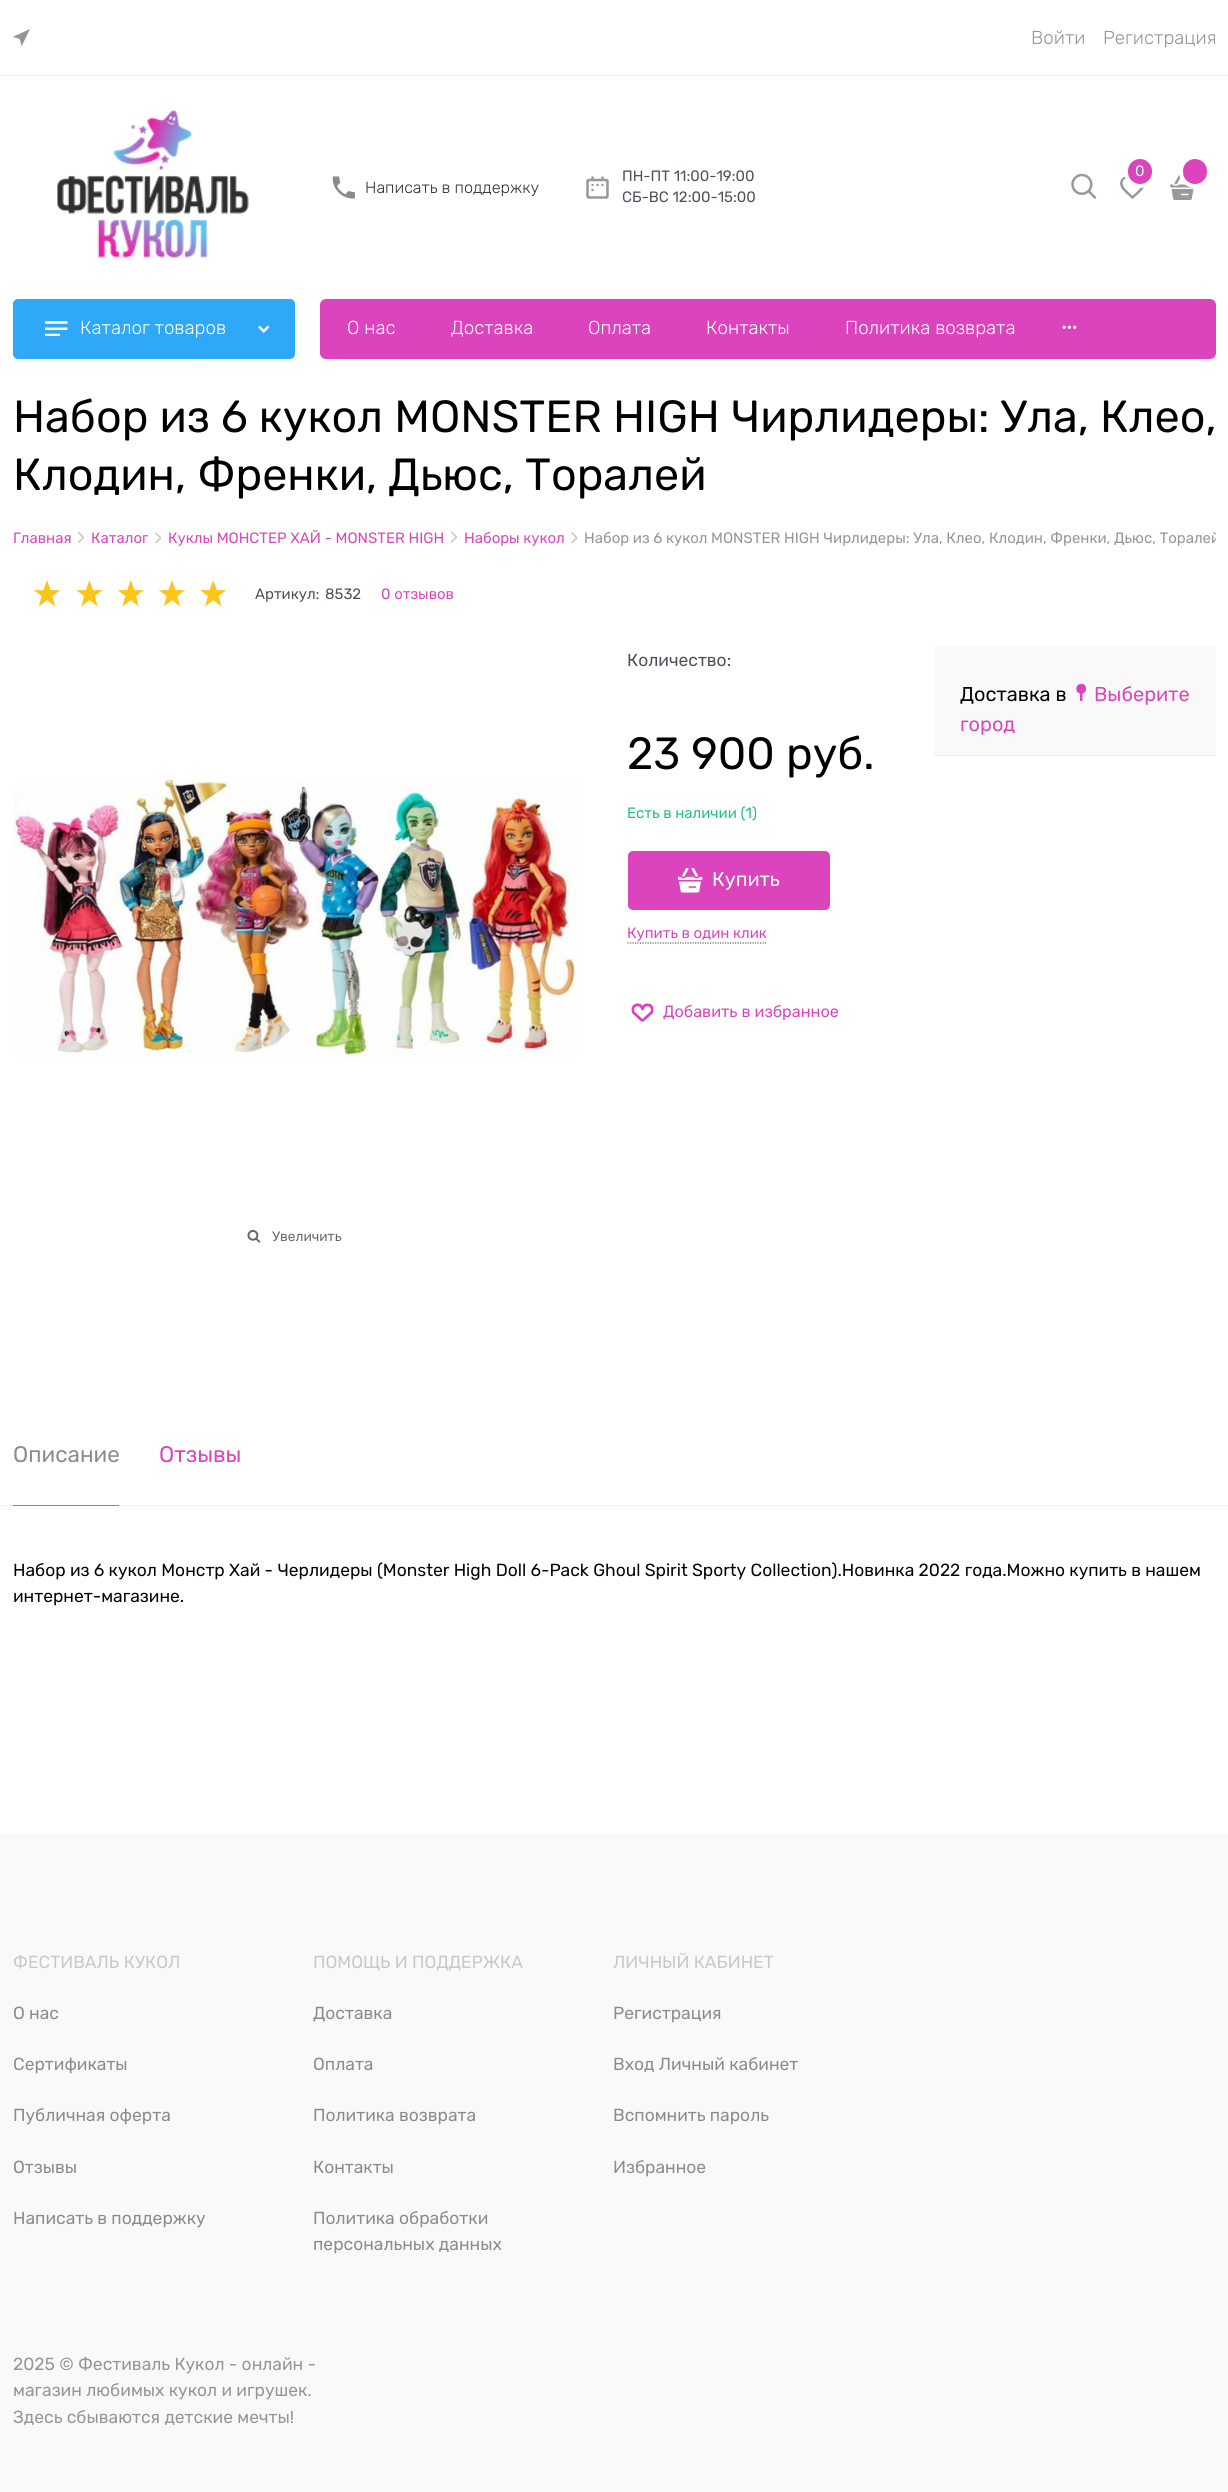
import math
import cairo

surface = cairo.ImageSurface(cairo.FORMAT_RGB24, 1228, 2492)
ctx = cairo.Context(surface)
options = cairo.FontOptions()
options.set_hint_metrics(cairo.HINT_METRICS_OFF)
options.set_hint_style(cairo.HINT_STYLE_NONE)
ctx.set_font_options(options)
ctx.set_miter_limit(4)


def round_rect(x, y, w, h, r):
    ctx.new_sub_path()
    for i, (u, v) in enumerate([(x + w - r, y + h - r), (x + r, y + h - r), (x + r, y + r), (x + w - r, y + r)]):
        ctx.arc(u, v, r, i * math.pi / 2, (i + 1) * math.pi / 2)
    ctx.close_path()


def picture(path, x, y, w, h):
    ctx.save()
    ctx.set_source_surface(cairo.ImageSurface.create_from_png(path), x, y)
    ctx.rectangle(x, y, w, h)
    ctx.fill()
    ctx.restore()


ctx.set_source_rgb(1, 1, 1)
ctx.paint()
ctx.set_source_rgb(0.937, 0.937, 0.957)
ctx.rectangle(0, 75, 1228, 1)
ctx.fill()
ctx.set_source_rgb(0.58, 0.588, 0.608)
ctx.new_path()
ctx.move_to(12.5, 37)
ctx.curve_to(21.5, 39.5, 19.5, 37.5, 21.5, 46.5)
ctx.line_to(30, 29)
ctx.close_path()
ctx.fill()
ctx.select_font_face("Rubik Light")
ctx.set_font_size(18.75)
ctx.move_to(1031, 44)
ctx.show_text("Войти")
ctx.move_to(1103, 44)
ctx.show_text("Регистрация")
picture("img1.png", 57, 109, 192, 149)
picture("img2.png", 332, 176, 23, 23)
ctx.set_font_size(16.25)
ctx.set_source_rgb(0.2, 0.2, 0.2)
ctx.move_to(365, 193)
ctx.show_text("Написать в поддержку")
picture("img3.png", 586, 176, 23, 23)
ctx.select_font_face("Rubik")
ctx.set_font_size(15)
ctx.set_source_rgb(0.294, 0.31, 0.345)
ctx.move_to(622, 181)
ctx.show_text("ПН-ПТ 11:00-19:00")
ctx.move_to(622, 202)
ctx.show_text("СБ-ВС 12:00-15:00")
picture("img4.png", 1071, 173, 26, 26)
picture("img5.png", 1120, 176, 24, 24)
ctx.set_source_rgb(0.859, 0.267, 0.737)
round_rect(1126, 157, 28, 29, 14)
ctx.fill_preserve()
ctx.set_source_rgb(1, 1, 1)
ctx.set_line_width(4)
ctx.stroke()
ctx.move_to(1135, 176)
ctx.show_text("0")
picture("img6.png", 1170, 175, 25, 25)
ctx.set_source_rgb(0.859, 0.267, 0.737)
round_rect(1181, 157, 28, 29, 14)
ctx.fill_preserve()
ctx.set_source_rgb(1, 1, 1)
ctx.stroke()
ctx.set_source_rgb(0.184, 0.659, 0.969)
round_rect(13, 299, 282, 60, 5)
ctx.fill()
picture("img7.png", 45, 321, 23, 15)
ctx.select_font_face("Rubik Light")
ctx.set_font_size(18.75)
ctx.set_source_rgb(1, 1, 1)
ctx.move_to(80, 334)
ctx.show_text("Каталог товаров")
picture("img8.png", 258, 325, 12, 8)
ctx.set_source_rgb(0.859, 0.267, 0.737)
round_rect(320, 299, 896, 60, 6)
ctx.fill()
ctx.set_source_rgb(1, 1, 1)
ctx.move_to(347, 334)
ctx.show_text("О нас")
ctx.move_to(451, 334)
ctx.show_text("Доставка")
ctx.move_to(588, 334)
ctx.show_text("Оплата")
ctx.move_to(706, 334)
ctx.show_text("Контакты")
ctx.move_to(845, 334)
ctx.show_text("Политика возврата")
picture("img9.png", 1062, 325, 15, 4)
ctx.select_font_face("Rubik")
ctx.set_font_size(45)
ctx.set_source_rgb(0, 0, 0)
ctx.move_to(13, 432)
ctx.show_text("Набор из 6 кукол MONSTER HIGH Чирлидеры: Ула, Клео,")
ctx.move_to(13, 490)
ctx.show_text("Клодин, Френки, Дьюс, Торалей")
ctx.set_font_size(15)
ctx.set_source_rgb(0.859, 0.267, 0.737)
ctx.move_to(13, 543)
ctx.show_text("Главная")
picture("img10.png", 78, 531, 6, 12)
ctx.move_to(91, 543)
ctx.show_text("Каталог")
picture("img11.png", 155, 532, 6, 11)
ctx.save()
ctx.rectangle(13, 530, 1203, 24)
ctx.clip()
ctx.move_to(168, 543)
ctx.show_text("Куклы МОНСТЕР ХАЙ - MONSTER HIGH")
ctx.restore()
picture("img12.png", 451, 531, 6, 12)
ctx.move_to(464, 543)
ctx.show_text("Наборы кукол")
picture("img13.png", 571, 532, 7, 11)
ctx.save()
ctx.rectangle(13, 530, 1203, 24)
ctx.clip()
ctx.set_source_rgb(0.588, 0.58, 0.58)
ctx.move_to(584, 543)
ctx.show_text("Набор из 6 кукол MONSTER HIGH Чирлидеры: Ула, Клео, Клодин, Френки, Дьюс, Торалей")
ctx.restore()
picture("img14.png", 33, 580, 27, 27)
picture("img15.png", 76, 580, 27, 27)
picture("img16.png", 117, 580, 27, 27)
picture("img14.png", 158, 580, 27, 27)
picture("img17.png", 200, 580, 27, 27)
ctx.set_source_rgb(0.294, 0.31, 0.345)
ctx.move_to(255, 599)
ctx.show_text("Артикул:")
ctx.move_to(325, 599)
ctx.show_text("8532")
ctx.set_source_rgb(0.859, 0.267, 0.737)
ctx.move_to(381, 599)
ctx.show_text("0 отзывов")
ctx.set_font_size(17.5)
ctx.set_source_rgb(0.294, 0.31, 0.345)
ctx.move_to(627, 666)
ctx.show_text("Количество:")
ctx.set_font_size(45)
ctx.set_source_rgb(0, 0, 0)
ctx.move_to(627, 769)
ctx.show_text("23 900 руб.")
ctx.set_font_size(15)
ctx.set_source_rgb(0.118, 0.757, 0.482)
ctx.move_to(627, 818)
ctx.show_text("Есть в наличии (1)")
ctx.set_source_rgb(0.859, 0.267, 0.737)
round_rect(628, 851, 202, 59, 5)
ctx.fill()
picture("img18.png", 678, 868, 25, 25)
ctx.set_font_size(20)
ctx.set_source_rgb(1, 1, 1)
ctx.move_to(712, 886)
ctx.show_text("Купить")
ctx.set_font_size(15)
ctx.set_source_rgb(0.859, 0.267, 0.737)
ctx.move_to(627, 938)
ctx.show_text("Купить в один клик")
ctx.new_path()
ctx.move_to(627.5, 943)
ctx.line_to(766, 943)
ctx.set_source_rgb(0.4, 0.4, 0.4)
ctx.set_line_width(1.2)
ctx.set_dash([1.25, 1.25])
ctx.stroke()
picture("img19.png", 631, 1003, 23, 19)
ctx.set_font_size(16.25)
ctx.set_source_rgb(0.859, 0.267, 0.737)
ctx.move_to(663, 1017)
ctx.show_text("Добавить в избранное")
ctx.set_source_rgb(0.937, 0.937, 0.957)
ctx.rectangle(934, 755, 282, 1)
ctx.fill()
ctx.set_source_rgb(0.976, 0.976, 0.976)
ctx.rectangle(934, 646, 282, 109)
ctx.fill()
picture("img20.png", 1076, 684, 10, 17)
ctx.set_font_size(20)
ctx.set_source_rgb(0.859, 0.267, 0.737)
ctx.move_to(1094, 701)
ctx.show_text("Выберите")
ctx.move_to(960, 731)
ctx.show_text("город")
ctx.set_source_rgb(0, 0, 0)
ctx.move_to(960, 701)
ctx.show_text("Доставка в")
picture("img21.png", 12, 776, 566, 284)
picture("img22.png", 247, 1229, 14, 14)
ctx.set_font_size(13.75)
ctx.set_source_rgb(0.4, 0.4, 0.4)
ctx.move_to(272, 1241)
ctx.show_text("Увеличить")
ctx.set_source_rgb(0.937, 0.937, 0.957)
ctx.rectangle(0, 1505, 1228, 1)
ctx.fill()
ctx.set_source_rgb(0.541, 0.541, 0.561)
ctx.rectangle(13, 1505, 106, 1)
ctx.fill()
ctx.set_font_size(22.5)
ctx.move_to(13, 1462)
ctx.show_text("Описание")
ctx.set_source_rgb(0.859, 0.267, 0.737)
ctx.move_to(159, 1462)
ctx.show_text("Отзывы")
ctx.set_font_size(17.5)
ctx.set_source_rgb(0, 0, 0)
ctx.move_to(13, 1576)
ctx.show_text("Набор из 6 кукол Монстр Хай - Черлидеры (Monster High Doll 6-Pack Ghoul Spirit Sporty Collection).Новинка 2022 года.Можно купить в нашем")
ctx.move_to(13, 1602)
ctx.show_text("интернет-магазине.")
ctx.set_source_rgb(0.976, 0.976, 0.976)
ctx.rectangle(0, 1833, 1228, 659)
ctx.fill()
ctx.set_source_rgb(0.784, 0.78, 0.8)
ctx.move_to(13, 1968)
ctx.show_text("ФЕСТИВАЛЬ КУКОЛ")
ctx.set_source_rgb(0.541, 0.541, 0.561)
ctx.move_to(13, 2019)
ctx.show_text("О нас")
ctx.move_to(13, 2070)
ctx.show_text("Сертификаты")
ctx.move_to(13, 2121)
ctx.show_text("Публичная оферта")
ctx.move_to(13, 2173)
ctx.show_text("Отзывы")
ctx.move_to(13, 2224)
ctx.show_text("Написать в поддержку")
ctx.set_source_rgb(0.784, 0.78, 0.8)
ctx.move_to(313, 1968)
ctx.show_text("ПОМОЩЬ И ПОДДЕРЖКА")
ctx.set_source_rgb(0.541, 0.541, 0.561)
ctx.move_to(313, 2019)
ctx.show_text("Доставка")
ctx.move_to(313, 2070)
ctx.show_text("Оплата")
ctx.move_to(313, 2121)
ctx.show_text("Политика возврата")
ctx.move_to(313, 2173)
ctx.show_text("Контакты")
ctx.move_to(313, 2224)
ctx.show_text("Политика обработки")
ctx.move_to(313, 2250)
ctx.show_text("персональных данных")
ctx.set_source_rgb(0.784, 0.78, 0.8)
ctx.move_to(613, 1968)
ctx.show_text("ЛИЧНЫЙ КАБИНЕТ")
ctx.set_source_rgb(0.541, 0.541, 0.561)
ctx.move_to(613, 2019)
ctx.show_text("Регистрация")
ctx.move_to(613, 2070)
ctx.show_text("Вход Личный кабинет")
ctx.move_to(613, 2121)
ctx.show_text("Вспомнить пароль")
ctx.move_to(613, 2173)
ctx.show_text("Избранное")
ctx.set_source_rgb(0.588, 0.58, 0.58)
ctx.move_to(13, 2370)
ctx.show_text("2025 © Фестиваль Кукол - онлайн -")
ctx.move_to(13, 2396)
ctx.show_text("магазин любимых кукол и игрушек.")
ctx.move_to(13, 2423)
ctx.show_text("Здесь сбываются детские мечты!")
surface.write_to_png("page.png")
